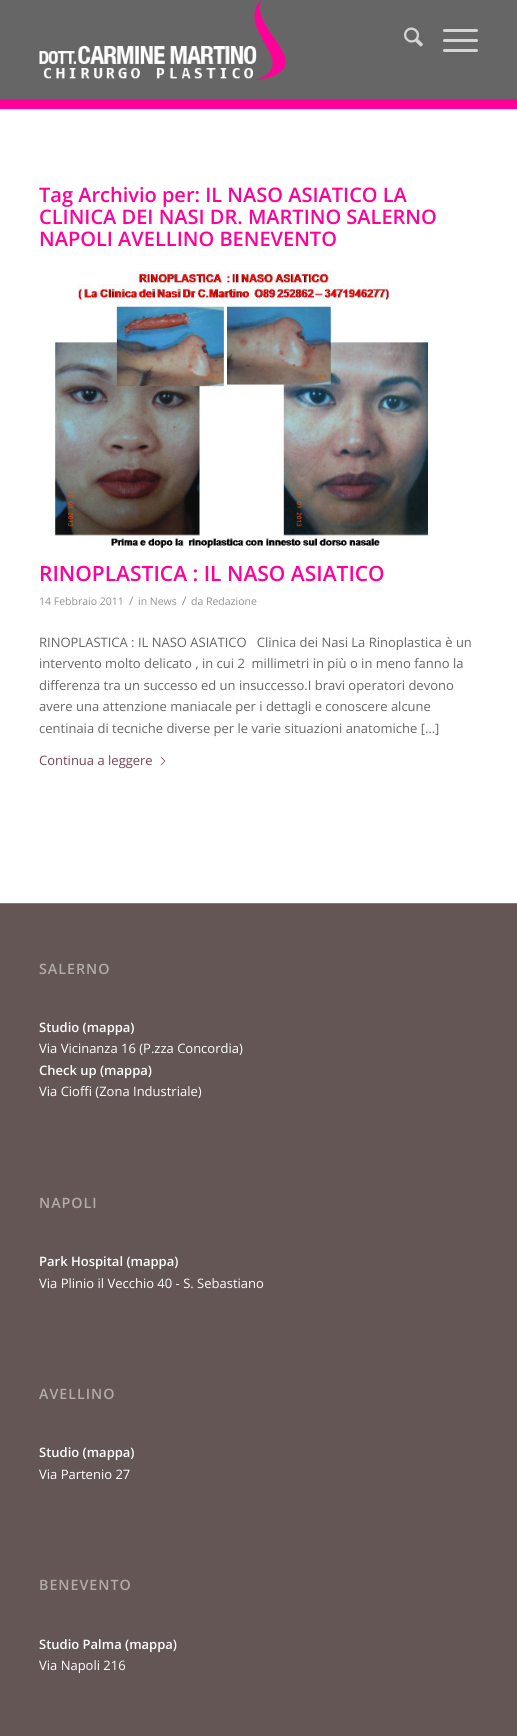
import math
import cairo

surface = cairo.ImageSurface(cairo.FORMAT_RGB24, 517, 1736)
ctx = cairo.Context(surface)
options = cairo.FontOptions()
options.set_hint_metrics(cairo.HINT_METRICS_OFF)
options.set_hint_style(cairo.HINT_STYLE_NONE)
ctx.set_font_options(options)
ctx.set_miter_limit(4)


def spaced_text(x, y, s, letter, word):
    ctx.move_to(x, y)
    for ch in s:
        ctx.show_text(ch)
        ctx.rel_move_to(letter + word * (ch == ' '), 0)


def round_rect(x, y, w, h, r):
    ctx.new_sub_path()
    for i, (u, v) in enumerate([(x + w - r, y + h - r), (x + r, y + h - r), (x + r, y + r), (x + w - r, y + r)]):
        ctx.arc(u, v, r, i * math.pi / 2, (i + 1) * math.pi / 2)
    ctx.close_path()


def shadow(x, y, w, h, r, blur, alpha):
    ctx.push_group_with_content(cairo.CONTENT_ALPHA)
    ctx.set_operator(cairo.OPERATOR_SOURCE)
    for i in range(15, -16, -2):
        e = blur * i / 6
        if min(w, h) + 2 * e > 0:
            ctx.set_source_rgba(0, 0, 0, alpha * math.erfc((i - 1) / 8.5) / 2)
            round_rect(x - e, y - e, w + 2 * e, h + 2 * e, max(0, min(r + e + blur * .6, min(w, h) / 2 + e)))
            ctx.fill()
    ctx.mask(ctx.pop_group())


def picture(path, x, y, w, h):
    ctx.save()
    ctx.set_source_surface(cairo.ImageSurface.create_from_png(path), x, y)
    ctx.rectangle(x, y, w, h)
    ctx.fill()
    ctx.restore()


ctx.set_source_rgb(1, 1, 1)
ctx.paint()
ctx.set_source_rgb(0, 0, 0)
shadow(-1, -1, 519, 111, 0, 1, 0.1)
ctx.set_source_rgb(1, 0.004, 0.596)
ctx.rectangle(0, 99, 517, 10)
ctx.fill()
ctx.set_source_rgb(0.4, 0.4, 0.4)
ctx.rectangle(0, 0, 517, 99)
ctx.fill()
picture("img1.png", 39, 0, 247, 80)
picture("img2.png", 404, 27, 19, 20)
ctx.set_source_rgb(0.831, 0.831, 0.831)
round_rect(443, 39, 35, 3, 1.5)
ctx.fill()
round_rect(443, 29, 35, 3, 1.5)
ctx.fill()
round_rect(443, 49, 35, 3, 1.5)
ctx.fill()
ctx.select_font_face("Open Sans SemiBold")
ctx.set_font_size(20)
ctx.set_source_rgb(1, 0, 0.6)
ctx.move_to(39, 202)
ctx.show_text("Tag Archivio per: IL NASO ASIATICO LA")
ctx.move_to(39, 224)
ctx.show_text("CLINICA DEI NASI DR. MARTINO SALERNO")
ctx.move_to(39, 246)
ctx.show_text("NAPOLI AVELLINO BENEVENTO")
picture("img3.png", 52, 271, 376, 277)
ctx.set_font_size(21)
ctx.move_to(39, 581)
ctx.show_text("RINOPLASTICA : IL NASO ASIATICO")
ctx.select_font_face("Open Sans")
ctx.set_font_size(10.5)
ctx.set_source_rgb(0.569, 0.569, 0.569)
ctx.move_to(39, 605)
ctx.show_text("14 Febbraio 2011")
ctx.set_font_size(12)
ctx.move_to(129, 605)
ctx.show_text("/")
ctx.set_font_size(10.5)
ctx.move_to(138, 605)
ctx.show_text("in News")
ctx.set_font_size(12)
ctx.move_to(182, 605)
ctx.show_text("/")
ctx.set_font_size(10.5)
ctx.move_to(191, 605)
ctx.show_text("da Redazione")
ctx.set_font_size(13)
ctx.set_source_rgb(0.4, 0.4, 0.4)
ctx.move_to(39, 647)
ctx.show_text("RINOPLASTICA : IL NASO ASIATICO   Clinica dei Nasi La Rinoplastica è un")
ctx.move_to(39, 668)
ctx.show_text("intervento molto delicato , in cui 2  millimetri in più o in meno fanno la")
ctx.move_to(39, 690)
ctx.show_text("differenza tra un successo ed un insuccesso.I bravi operatori devono")
ctx.move_to(39, 711)
ctx.show_text("avere una attenzione maniacale per i dettagli e conoscere alcune")
ctx.move_to(39, 733)
ctx.show_text("centinaia di tecniche diverse per le varie situazioni anatomiche […]")
ctx.set_source_rgb(0.451, 0.282, 0.329)
ctx.move_to(39, 765)
ctx.show_text("Continua a leggere")
picture("img4.png", 160, 756, 6, 10)
ctx.set_source_rgb(0.388, 0.337, 0.333)
ctx.rectangle(0, 904, 517, 832)
ctx.fill()
ctx.set_source_rgb(0.502, 0.471, 0.467)
ctx.rectangle(0, 903, 517, 1)
ctx.fill()
ctx.select_font_face("Open Sans SemiBold")
ctx.set_font_size(14.25)
ctx.set_source_rgb(0.694, 0.671, 0.667)
spaced_text(39, 974, "SALERNO", 1, 0)
ctx.set_font_size(13)
ctx.set_source_rgb(1, 1, 1)
ctx.move_to(39, 1032)
ctx.show_text("Studio (mappa)")
ctx.select_font_face("Open Sans")
ctx.move_to(39, 1053)
ctx.show_text("Via Vicinanza 16 (P.zza Concordia)")
ctx.select_font_face("Open Sans SemiBold")
ctx.move_to(39, 1075)
ctx.show_text("Check up (mappa)")
ctx.select_font_face("Open Sans")
ctx.move_to(39, 1096)
ctx.show_text("Via Cioffi (Zona Industriale)")
ctx.select_font_face("Open Sans SemiBold")
ctx.set_font_size(14.25)
ctx.set_source_rgb(0.694, 0.671, 0.667)
spaced_text(39, 1208, "NAPOLI", 1, 0)
ctx.set_font_size(13)
ctx.set_source_rgb(1, 1, 1)
ctx.move_to(39, 1266)
ctx.show_text("Park Hospital (mappa)")
ctx.select_font_face("Open Sans")
ctx.move_to(39, 1288)
ctx.show_text("Via Plinio il Vecchio 40 - S. Sebastiano")
ctx.select_font_face("Open Sans SemiBold")
ctx.set_font_size(14.25)
ctx.set_source_rgb(0.694, 0.671, 0.667)
spaced_text(39, 1399, "AVELLINO", 1, 0)
ctx.set_font_size(13)
ctx.set_source_rgb(1, 1, 1)
ctx.move_to(39, 1457)
ctx.show_text("Studio (mappa)")
ctx.select_font_face("Open Sans")
ctx.move_to(39, 1479)
ctx.show_text("Via Partenio 27")
ctx.select_font_face("Open Sans SemiBold")
ctx.set_font_size(14.25)
ctx.set_source_rgb(0.694, 0.671, 0.667)
spaced_text(39, 1590, "BENEVENTO", 1, 0)
ctx.set_font_size(13)
ctx.set_source_rgb(1, 1, 1)
ctx.move_to(39, 1649)
ctx.show_text("Studio Palma (mappa)")
ctx.select_font_face("Open Sans")
ctx.move_to(39, 1670)
ctx.show_text("Via Napoli 216")
surface.write_to_png("page.png")
